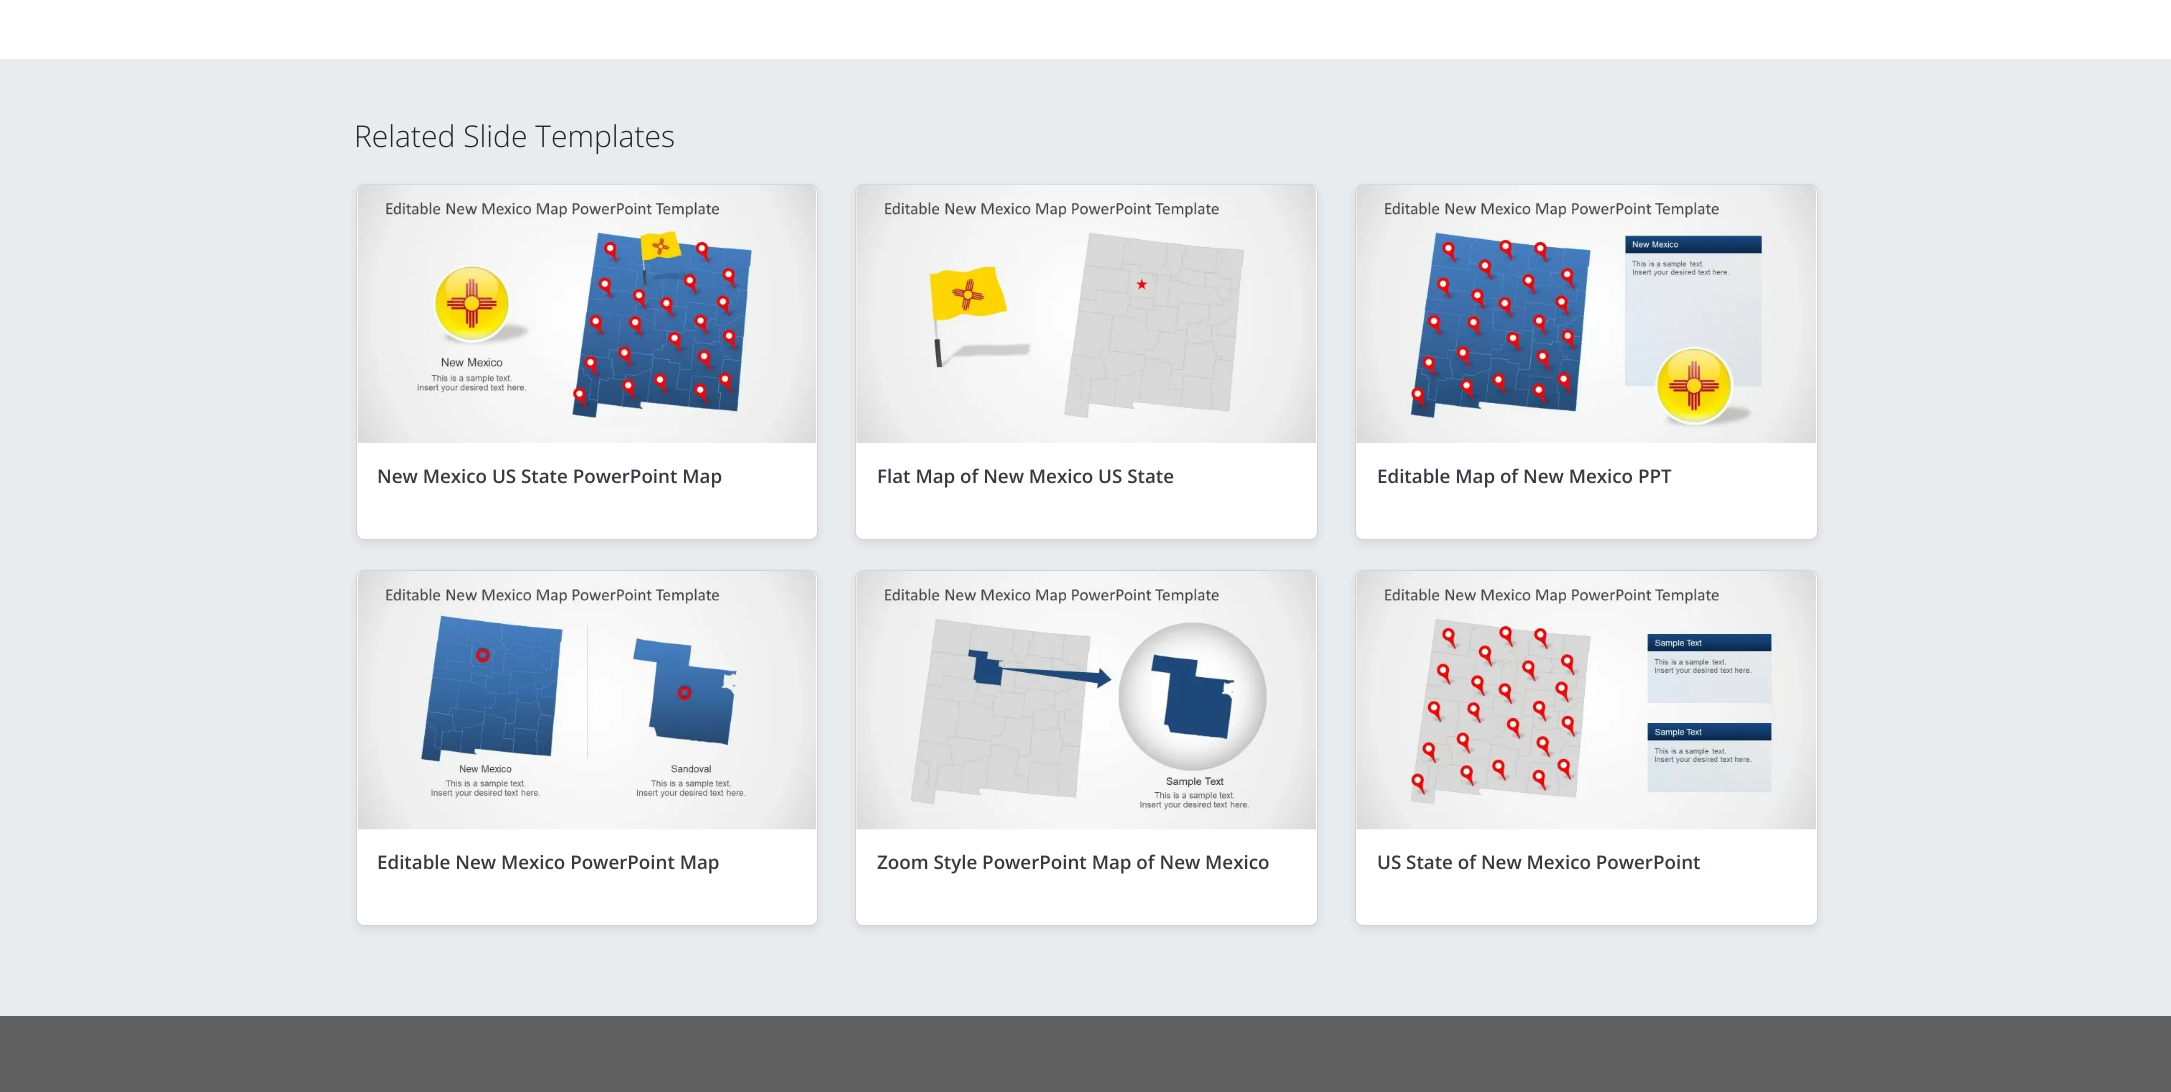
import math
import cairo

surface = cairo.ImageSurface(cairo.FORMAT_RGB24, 2171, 1092)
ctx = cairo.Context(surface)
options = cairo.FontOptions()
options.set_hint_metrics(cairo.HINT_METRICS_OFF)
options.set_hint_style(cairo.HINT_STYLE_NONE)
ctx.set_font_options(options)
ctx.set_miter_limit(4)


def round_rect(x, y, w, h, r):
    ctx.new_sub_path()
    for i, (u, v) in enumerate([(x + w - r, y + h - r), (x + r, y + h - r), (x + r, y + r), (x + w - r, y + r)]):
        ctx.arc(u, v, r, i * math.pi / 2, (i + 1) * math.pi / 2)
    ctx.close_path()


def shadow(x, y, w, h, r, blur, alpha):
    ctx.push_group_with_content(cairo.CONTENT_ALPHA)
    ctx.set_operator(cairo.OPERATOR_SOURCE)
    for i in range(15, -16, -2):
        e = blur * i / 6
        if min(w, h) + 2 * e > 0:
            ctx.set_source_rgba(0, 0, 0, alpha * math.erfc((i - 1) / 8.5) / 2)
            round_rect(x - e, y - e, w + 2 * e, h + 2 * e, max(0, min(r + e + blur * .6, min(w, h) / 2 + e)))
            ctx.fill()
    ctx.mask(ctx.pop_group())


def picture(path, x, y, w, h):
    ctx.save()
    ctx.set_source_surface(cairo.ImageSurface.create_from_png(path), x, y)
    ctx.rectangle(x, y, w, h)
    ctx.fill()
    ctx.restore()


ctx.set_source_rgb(1, 1, 1)
ctx.paint()
ctx.set_source_rgb(0.914, 0.925, 0.937)
ctx.rectangle(0, 59, 2171, 957)
ctx.fill()
ctx.select_font_face("Open Sans Light")
ctx.set_font_size(30)
ctx.set_source_rgb(0.129, 0.145, 0.161)
ctx.move_to(354, 147)
ctx.show_text("Related Slide Templates")
ctx.set_source_rgb(0, 0, 0)
shadow(356, 188, 462, 356, 8, 4.5, 0.08)
ctx.set_source_rgb(1, 1, 1)
round_rect(356.5, 184.5, 461, 355, 7.5)
ctx.fill_preserve()
ctx.set_source_rgb(0.808, 0.831, 0.855)
ctx.set_line_width(1)
ctx.stroke()
picture("img1.png", 357, 184, 459, 259)
ctx.select_font_face("Open Sans SemiBold")
ctx.set_font_size(18.75)
ctx.set_source_rgb(0.204, 0.227, 0.251)
ctx.move_to(377, 483)
ctx.show_text("New Mexico US State PowerPoint Map")
ctx.set_source_rgb(0, 0, 0)
shadow(855, 188, 463, 356, 8, 4.5, 0.08)
ctx.set_source_rgb(1, 1, 1)
round_rect(855.5, 184.5, 462, 355, 7.5)
ctx.fill_preserve()
ctx.set_source_rgb(0.808, 0.831, 0.855)
ctx.stroke()
picture("img2.png", 856, 184, 460, 259)
ctx.set_source_rgb(0.204, 0.227, 0.251)
ctx.move_to(877, 483)
ctx.show_text("Flat Map of New Mexico US State")
ctx.set_source_rgb(0, 0, 0)
shadow(1355, 188, 463, 356, 8, 4.5, 0.08)
ctx.set_source_rgb(1, 1, 1)
round_rect(1355.5, 184.5, 462, 355, 7.5)
ctx.fill_preserve()
ctx.set_source_rgb(0.808, 0.831, 0.855)
ctx.stroke()
picture("img3.png", 1356, 184, 460, 259)
ctx.set_source_rgb(0.204, 0.227, 0.251)
ctx.move_to(1377, 483)
ctx.show_text("Editable Map of New Mexico PPT")
ctx.set_source_rgb(0, 0, 0)
shadow(356, 574, 462, 356, 8, 4.5, 0.08)
ctx.set_source_rgb(1, 1, 1)
round_rect(356.5, 570.5, 461, 355, 7.5)
ctx.fill_preserve()
ctx.set_source_rgb(0.808, 0.831, 0.855)
ctx.stroke()
picture("img4.png", 357, 571, 459, 259)
ctx.set_source_rgb(0.204, 0.227, 0.251)
ctx.move_to(377, 869)
ctx.show_text("Editable New Mexico PowerPoint Map")
ctx.set_source_rgb(0, 0, 0)
shadow(855, 574, 463, 356, 8, 4.5, 0.08)
ctx.set_source_rgb(1, 1, 1)
round_rect(855.5, 570.5, 462, 355, 7.5)
ctx.fill_preserve()
ctx.set_source_rgb(0.808, 0.831, 0.855)
ctx.stroke()
picture("img5.png", 856, 571, 460, 259)
ctx.set_source_rgb(0.204, 0.227, 0.251)
ctx.move_to(877, 869)
ctx.show_text("Zoom Style PowerPoint Map of New Mexico")
ctx.set_source_rgb(0, 0, 0)
shadow(1355, 574, 463, 356, 8, 4.5, 0.08)
ctx.set_source_rgb(1, 1, 1)
round_rect(1355.5, 570.5, 462, 355, 7.5)
ctx.fill_preserve()
ctx.set_source_rgb(0.808, 0.831, 0.855)
ctx.stroke()
picture("img6.png", 1356, 571, 460, 259)
ctx.set_source_rgb(0.204, 0.227, 0.251)
ctx.move_to(1377, 869)
ctx.show_text("US State of New Mexico PowerPoint")
ctx.set_source_rgb(0.376, 0.376, 0.376)
ctx.rectangle(0, 1016, 2171, 76)
ctx.fill()
surface.write_to_png("page.png")
